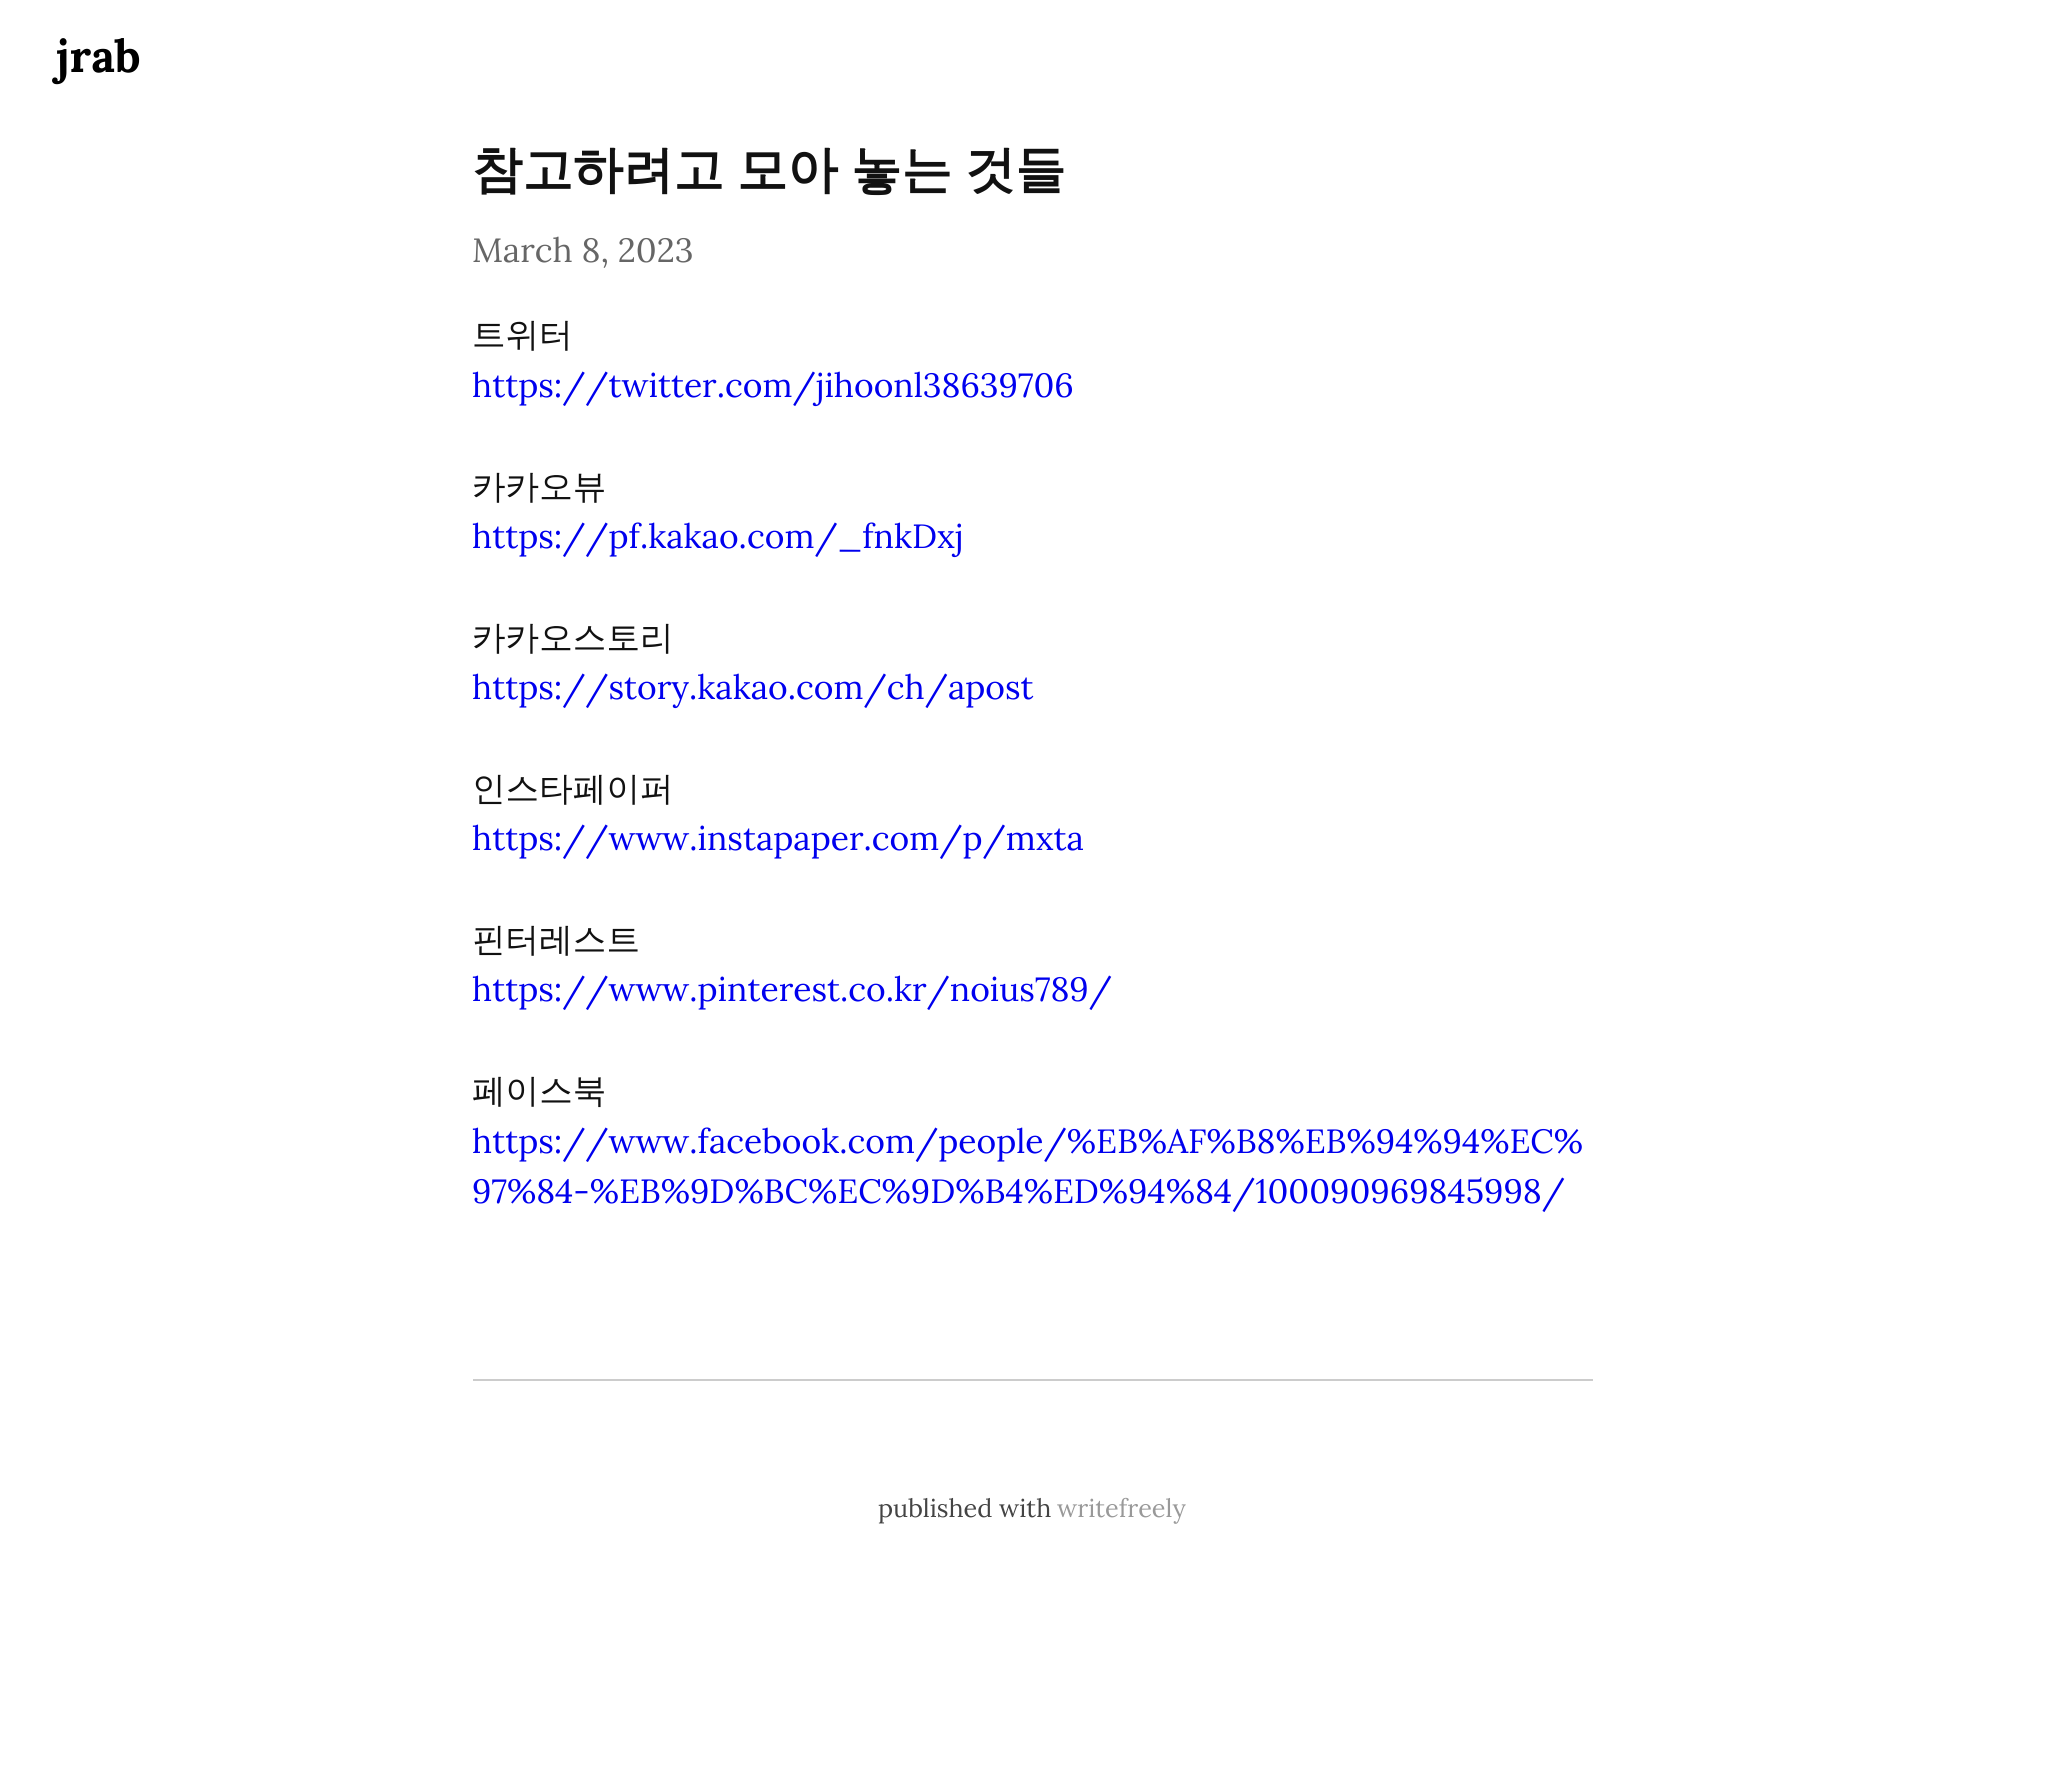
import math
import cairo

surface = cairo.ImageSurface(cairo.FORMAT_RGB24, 2062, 1781)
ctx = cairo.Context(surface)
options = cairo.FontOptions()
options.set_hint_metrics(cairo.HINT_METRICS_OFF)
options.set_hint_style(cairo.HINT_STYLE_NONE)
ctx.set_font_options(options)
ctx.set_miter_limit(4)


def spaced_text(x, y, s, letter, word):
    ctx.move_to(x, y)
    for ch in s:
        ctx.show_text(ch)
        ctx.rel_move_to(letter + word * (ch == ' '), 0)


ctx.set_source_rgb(1, 1, 1)
ctx.paint()
ctx.select_font_face("Lora", cairo.FONT_SLANT_NORMAL, cairo.FONT_WEIGHT_BOLD)
ctx.set_font_size(45)
ctx.set_source_rgb(0, 0, 0)
ctx.move_to(56, 72)
ctx.show_text("jrab")
ctx.select_font_face("WenQuanYi Zen Hei", cairo.FONT_SLANT_NORMAL, cairo.FONT_WEIGHT_BOLD)
ctx.set_font_size(50.4)
ctx.set_source_rgb(0.067, 0.067, 0.067)
spaced_text(472, 187, "참고하려고 모아 놓는 것들", 0, -2)
ctx.select_font_face("Lora")
ctx.set_font_size(33.6)
ctx.set_source_rgb(0.4, 0.4, 0.4)
ctx.move_to(472, 262)
ctx.show_text("March 8, 2023")
ctx.select_font_face("WenQuanYi Zen Hei Medium")
ctx.set_source_rgb(0.067, 0.067, 0.067)
ctx.move_to(472, 346)
ctx.show_text("트위터")
ctx.select_font_face("Lora")
ctx.set_source_rgb(0, 0, 0.933)
ctx.move_to(472, 397)
ctx.show_text("https://twitter.com/jihoonl38639706")
ctx.select_font_face("WenQuanYi Zen Hei Medium")
ctx.set_source_rgb(0.067, 0.067, 0.067)
ctx.move_to(472, 498)
ctx.show_text("카카오뷰")
ctx.select_font_face("Lora")
ctx.set_source_rgb(0, 0, 0.933)
ctx.move_to(472, 548)
ctx.show_text("https://pf.kakao.com/_fnkDxj")
ctx.select_font_face("WenQuanYi Zen Hei Medium")
ctx.set_source_rgb(0.067, 0.067, 0.067)
ctx.move_to(472, 649)
ctx.show_text("카카오스토리")
ctx.select_font_face("Lora")
ctx.set_source_rgb(0, 0, 0.933)
ctx.move_to(472, 699)
ctx.show_text("https://story.kakao.com/ch/apost")
ctx.select_font_face("WenQuanYi Zen Hei Medium")
ctx.set_source_rgb(0.067, 0.067, 0.067)
ctx.move_to(472, 800)
ctx.show_text("인스타페이퍼")
ctx.select_font_face("Lora")
ctx.set_source_rgb(0, 0, 0.933)
ctx.move_to(472, 850)
ctx.show_text("https://www.instapaper.com/p/mxta")
ctx.select_font_face("WenQuanYi Zen Hei Medium")
ctx.set_source_rgb(0.067, 0.067, 0.067)
ctx.move_to(472, 951)
ctx.show_text("핀터레스트")
ctx.select_font_face("Lora")
ctx.set_source_rgb(0, 0, 0.933)
ctx.move_to(472, 1001)
ctx.show_text("https://www.pinterest.co.kr/noius789/")
ctx.select_font_face("WenQuanYi Zen Hei Medium")
ctx.set_source_rgb(0.067, 0.067, 0.067)
ctx.move_to(472, 1102)
ctx.show_text("페이스북")
ctx.select_font_face("Lora")
ctx.set_source_rgb(0, 0, 0.933)
ctx.move_to(472, 1153)
ctx.show_text("https://www.facebook.com/people/%EB%AF%B8%EB%94%94%EC%")
ctx.move_to(472, 1203)
ctx.show_text("97%84-%EB%9D%BC%EC%9D%B4%ED%94%84/100090969845998/")
ctx.set_source_rgb(0.8, 0.8, 0.8)
ctx.rectangle(473, 1379, 1120, 2)
ctx.fill()
ctx.set_font_size(25.25)
ctx.set_source_rgb(0.267, 0.267, 0.267)
ctx.move_to(878, 1517)
ctx.show_text("published with")
ctx.set_source_rgb(0.6, 0.6, 0.6)
ctx.move_to(1057, 1517)
ctx.show_text("writefreely")
surface.write_to_png("page.png")
